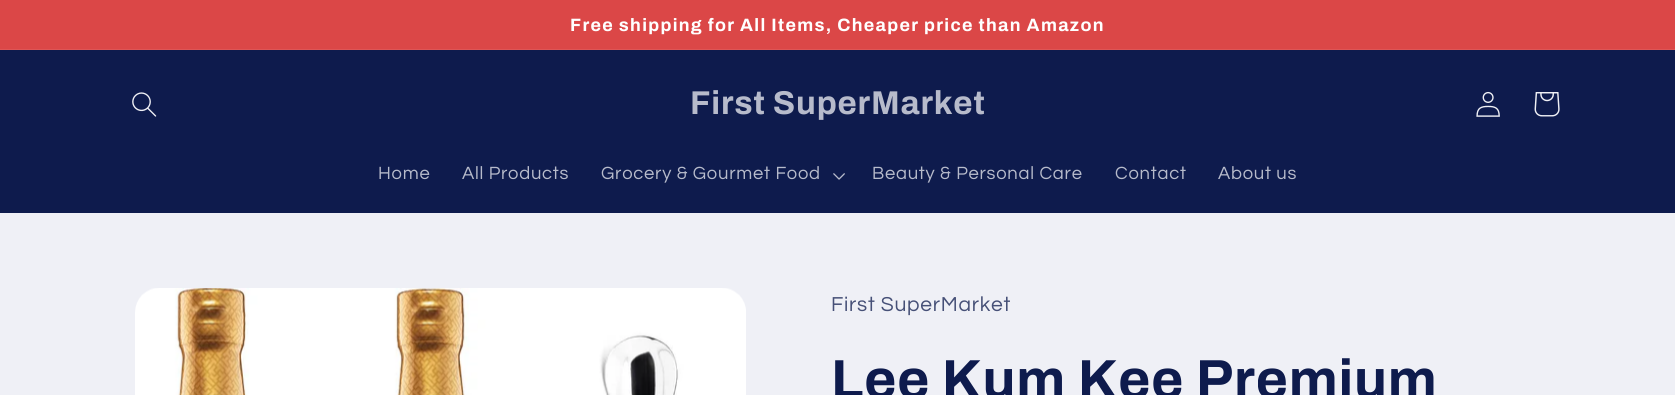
import math
import cairo

surface = cairo.ImageSurface(cairo.FORMAT_RGB24, 1675, 395)
ctx = cairo.Context(surface)
options = cairo.FontOptions()
options.set_hint_metrics(cairo.HINT_METRICS_OFF)
options.set_hint_style(cairo.HINT_STYLE_NONE)
ctx.set_font_options(options)
ctx.set_miter_limit(4)


def spaced_text(x, y, s, letter, word):
    ctx.move_to(x, y)
    for ch in s:
        ctx.show_text(ch)
        ctx.rel_move_to(letter + word * (ch == ' '), 0)


def picture(path, x, y, w, h):
    ctx.save()
    ctx.set_source_surface(cairo.ImageSurface.create_from_png(path), x, y)
    ctx.rectangle(x, y, w, h)
    ctx.fill()
    ctx.restore()


ctx.set_source_rgb(0.937, 0.941, 0.961)
ctx.paint()
ctx.set_source_rgb(0.859, 0.278, 0.278)
ctx.rectangle(0, 0, 1675, 49)
ctx.fill()
ctx.set_source_rgb(0.871, 0.337, 0.337)
ctx.rectangle(0, 49, 1675, 1)
ctx.fill()
ctx.select_font_face("Archivo", cairo.FONT_SLANT_NORMAL, cairo.FONT_WEIGHT_BOLD)
ctx.set_font_size(17.9)
ctx.set_source_rgb(1, 1, 1)
spaced_text(570, 31, "Free shipping for All Items, Cheaper price than Amazon", 1.3, 0)
ctx.set_source_rgb(0.055, 0.106, 0.302)
ctx.rectangle(0, 50, 1675, 163)
ctx.fill()
picture("img1.png", 132, 92, 25, 25)
ctx.set_font_size(33)
ctx.set_source_rgb(0.718, 0.733, 0.796)
spaced_text(690, 114, "First SuperMarket", 0.8, 0)
picture("img2.png", 1476, 91, 24, 26)
picture("img3.png", 1534, 92, 26, 25)
ctx.select_font_face("Questrial")
ctx.set_font_size(18.4)
spaced_text(378, 179, "Home", 0.75, 0)
spaced_text(462, 179, "All Products", 0.75, 0)
spaced_text(601, 179, "Grocery & Gourmet Food", 0.75, 0)
picture("img4.png", 833, 173, 12, 7)
spaced_text(872, 179, "Beauty & Personal Care", 0.75, 0)
spaced_text(1115, 179, "Contact", 0.75, 0)
spaced_text(1218, 179, "About us", 0.75, 0)
picture("img5.png", 135, 288, 611, 107)
ctx.set_font_size(21)
ctx.set_source_rgb(0.275, 0.314, 0.467)
spaced_text(831, 311, "First SuperMarket", 0.75, 0)
ctx.select_font_face("Archivo", cairo.FONT_SLANT_NORMAL, cairo.FONT_WEIGHT_BOLD)
ctx.set_font_size(55)
ctx.set_source_rgb(0.055, 0.106, 0.302)
spaced_text(831, 398, "Lee Kum Kee Premium", 0.8, 0)
surface.write_to_png("page.png")
